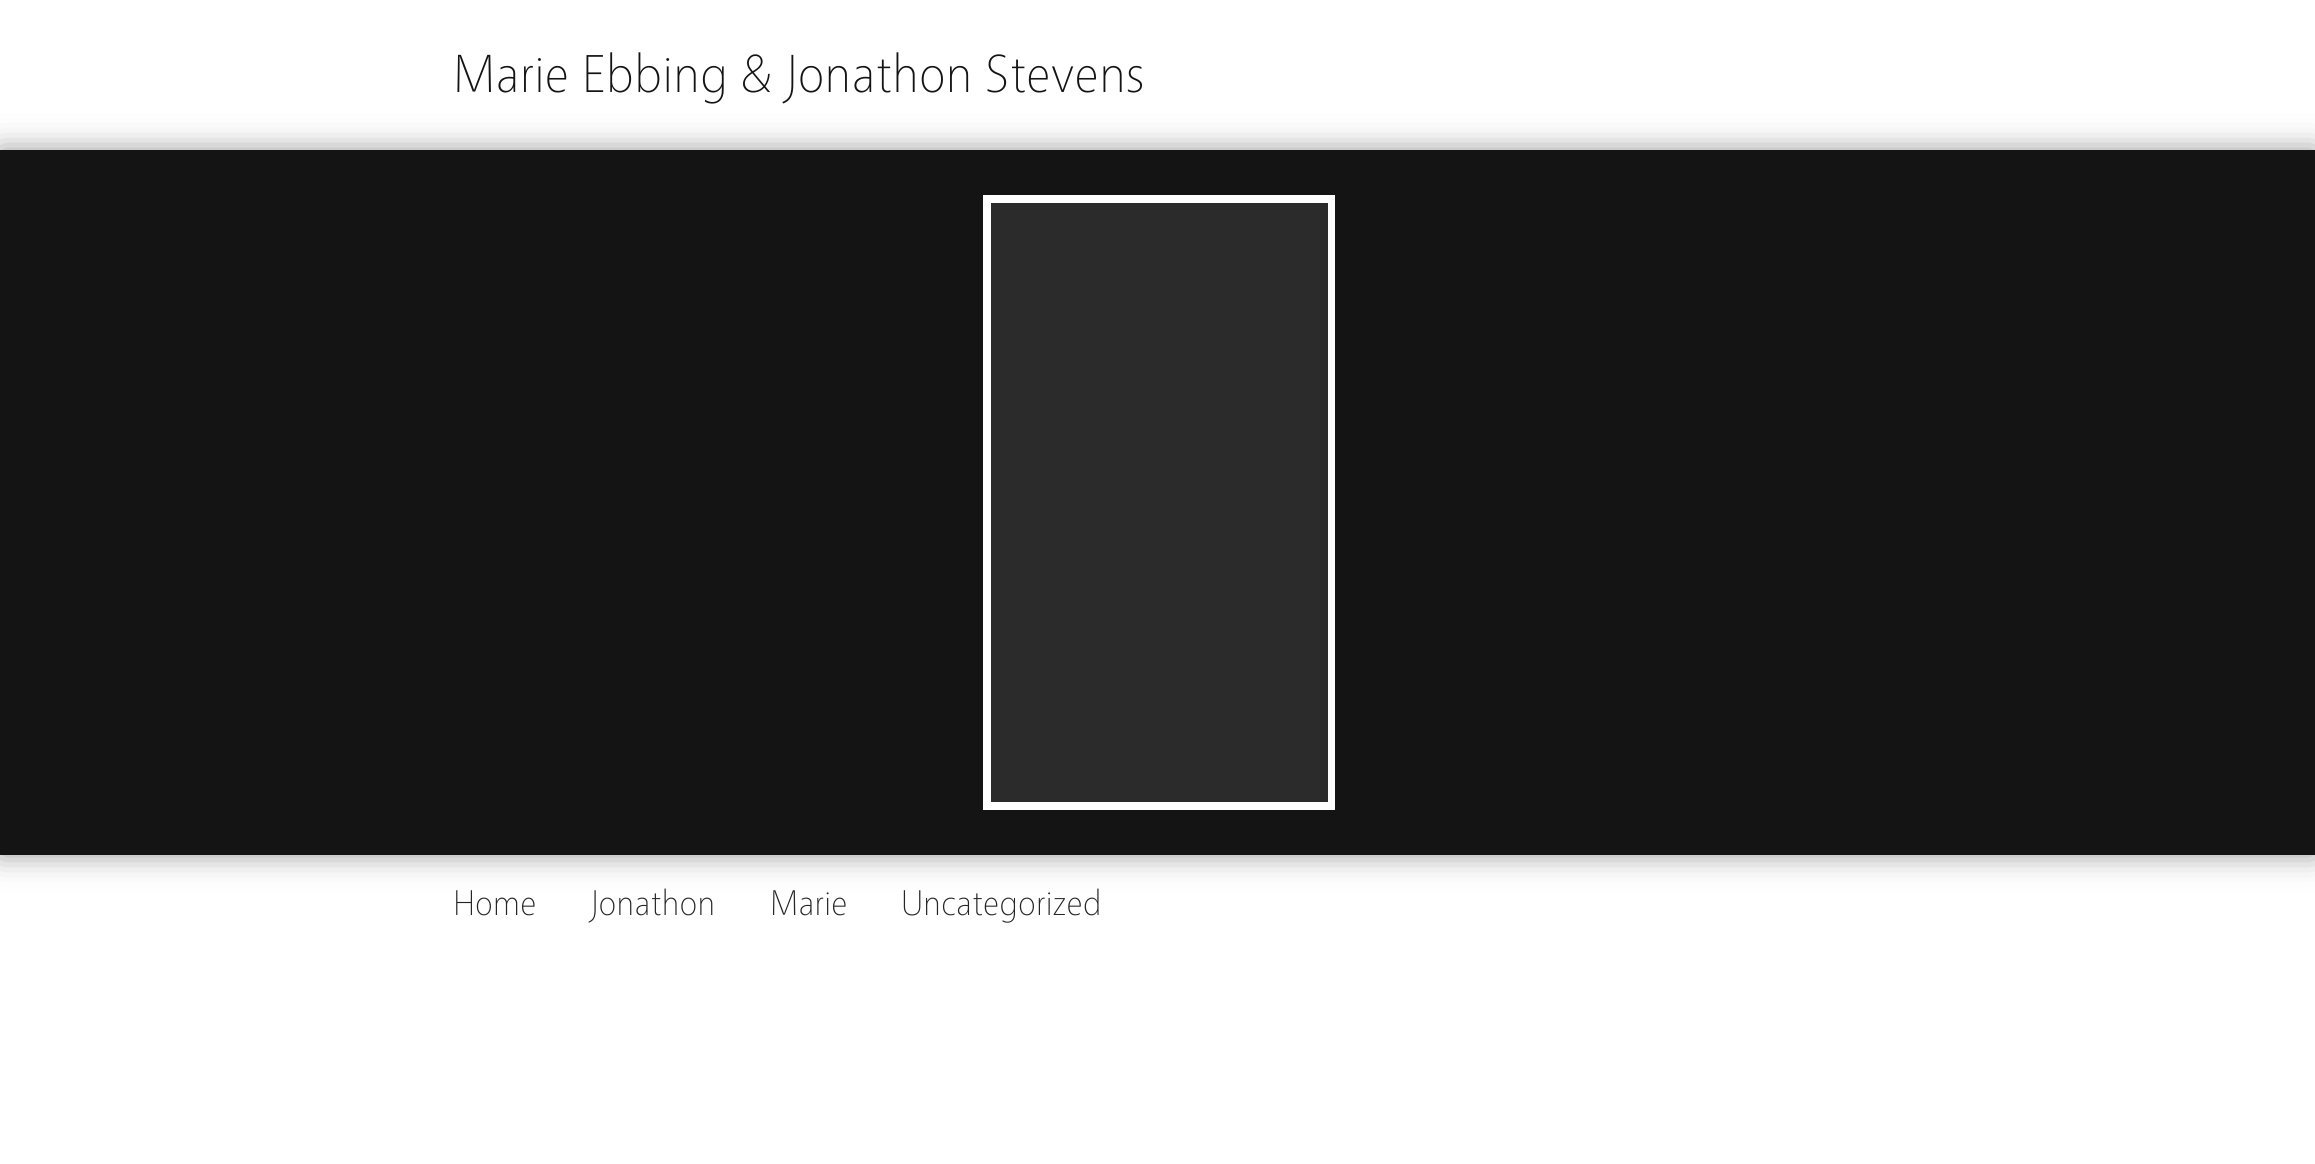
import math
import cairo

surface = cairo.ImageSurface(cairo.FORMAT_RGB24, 2315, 1164)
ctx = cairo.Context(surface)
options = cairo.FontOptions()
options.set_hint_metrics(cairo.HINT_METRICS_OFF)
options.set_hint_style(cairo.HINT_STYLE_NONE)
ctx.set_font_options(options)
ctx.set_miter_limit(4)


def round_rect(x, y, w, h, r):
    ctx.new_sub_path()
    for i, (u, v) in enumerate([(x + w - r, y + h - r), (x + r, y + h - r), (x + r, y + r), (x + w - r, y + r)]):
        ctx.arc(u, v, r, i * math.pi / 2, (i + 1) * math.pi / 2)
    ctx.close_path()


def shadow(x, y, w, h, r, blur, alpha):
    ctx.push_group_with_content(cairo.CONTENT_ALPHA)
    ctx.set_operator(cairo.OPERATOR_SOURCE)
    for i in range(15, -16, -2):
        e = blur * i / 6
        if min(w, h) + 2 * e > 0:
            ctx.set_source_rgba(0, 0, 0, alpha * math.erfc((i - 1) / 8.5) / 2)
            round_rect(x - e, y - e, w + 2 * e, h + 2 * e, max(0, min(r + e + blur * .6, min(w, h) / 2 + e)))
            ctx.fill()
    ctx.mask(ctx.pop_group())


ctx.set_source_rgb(1, 1, 1)
ctx.paint()
ctx.select_font_face("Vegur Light")
ctx.set_font_size(54)
ctx.set_source_rgb(0.082, 0.082, 0.082)
ctx.move_to(453, 92)
ctx.show_text("Marie Ebbing & Jonathon Stevens")
ctx.set_source_rgb(0.6, 0.6, 0.6)
shadow(0, 150, 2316, 705, 0, 15, 1)
ctx.set_source_rgb(0.082, 0.082, 0.082)
ctx.rectangle(0, 150, 2315, 705)
ctx.fill()
ctx.set_source_rgb(1, 1, 1)
ctx.rectangle(1328, 195, 7, 615)
ctx.fill()
ctx.save()
ctx.rectangle(983, 195, 345, 615)
ctx.clip()
ctx.rectangle(987, 199, 907, 607)
ctx.set_line_width(8)
ctx.stroke()
ctx.restore()
ctx.set_source_rgba(1, 1, 1, 0.1)
ctx.rectangle(991, 203, 337, 599)
ctx.fill()
ctx.set_font_size(36)
ctx.set_source_rgb(0.145, 0.145, 0.145)
ctx.move_to(453, 915)
ctx.show_text("Home")
ctx.move_to(590, 915)
ctx.show_text("Jonathon")
ctx.move_to(770, 915)
ctx.show_text("Marie")
ctx.move_to(901, 915)
ctx.show_text("Uncategorized")
surface.write_to_png("page.png")
